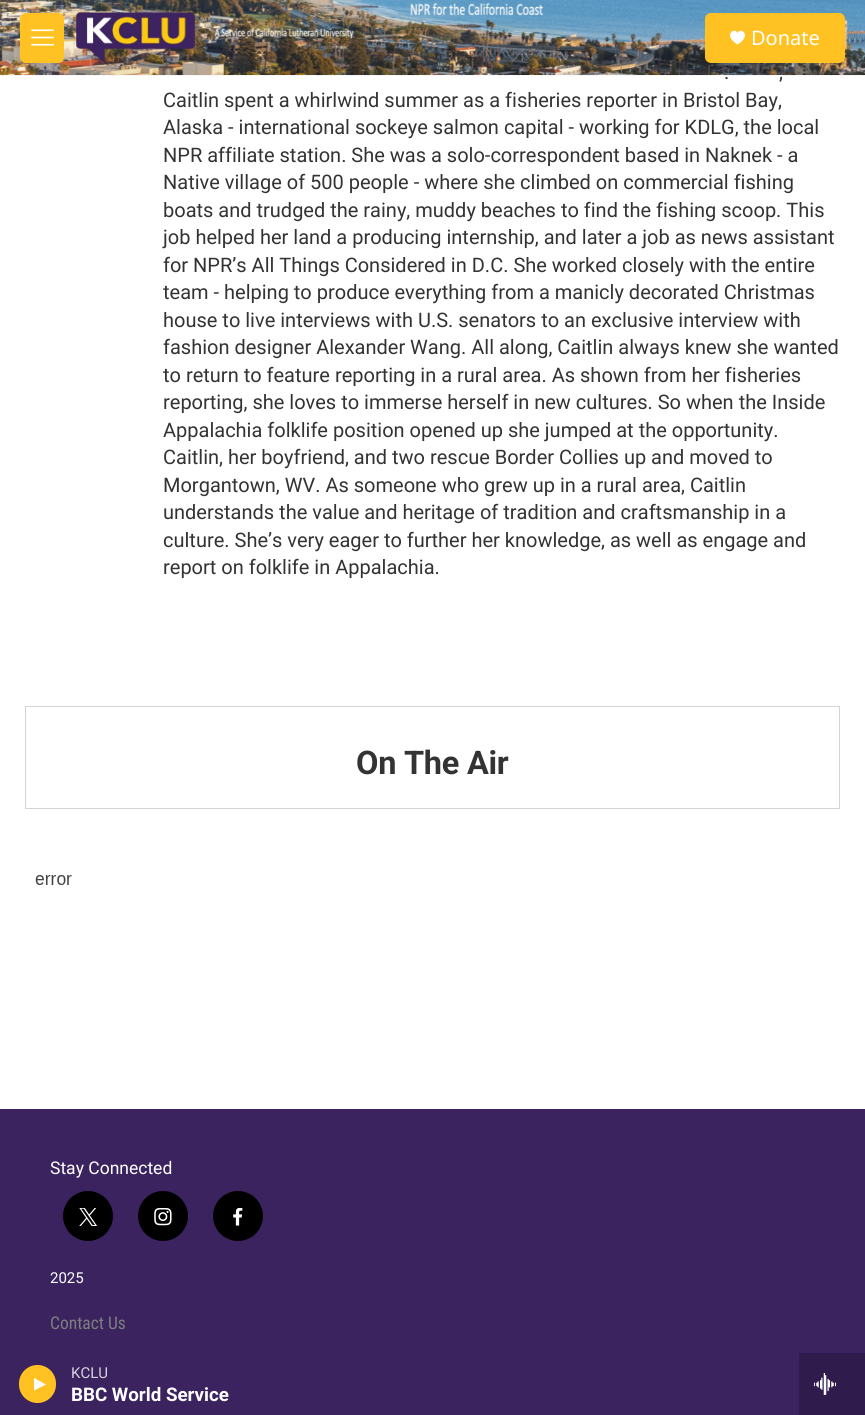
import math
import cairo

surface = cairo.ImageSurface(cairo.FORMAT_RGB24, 865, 1415)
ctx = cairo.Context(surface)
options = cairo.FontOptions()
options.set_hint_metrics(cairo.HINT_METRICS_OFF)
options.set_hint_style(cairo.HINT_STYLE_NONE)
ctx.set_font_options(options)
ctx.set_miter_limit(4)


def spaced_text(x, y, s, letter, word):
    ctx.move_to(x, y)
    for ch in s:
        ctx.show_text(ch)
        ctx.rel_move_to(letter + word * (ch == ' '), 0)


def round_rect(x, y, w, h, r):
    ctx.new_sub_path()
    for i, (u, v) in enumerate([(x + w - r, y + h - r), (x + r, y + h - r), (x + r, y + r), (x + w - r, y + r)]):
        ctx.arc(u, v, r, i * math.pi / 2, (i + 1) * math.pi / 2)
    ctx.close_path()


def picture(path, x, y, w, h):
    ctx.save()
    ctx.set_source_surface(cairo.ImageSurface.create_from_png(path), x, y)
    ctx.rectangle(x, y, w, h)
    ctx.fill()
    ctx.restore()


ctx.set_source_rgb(1, 1, 1)
ctx.paint()
ctx.set_source_rgb(0.961, 0.961, 0.961)
ctx.rectangle(0, 75, 865, 1)
ctx.fill()
picture("img1.png", 0, 0, 865, 75)
ctx.set_source_rgb(1, 0.761, 0.133)
round_rect(20, 13, 44, 50, 6)
ctx.fill()
picture("img2.png", 31, 29, 23, 17)
picture("img3.png", 76, 12, 119, 51)
round_rect(705, 13, 140, 50, 6)
ctx.fill()
ctx.set_source_rgb(1, 1, 1)
ctx.new_path()
ctx.move_to(737.5, 33)
ctx.curve_to(735, 26.5, 722, 35, 737.5, 44.5)
ctx.curve_to(753, 35, 740, 26.5, 737.5, 33)
ctx.close_path()
ctx.fill()
ctx.select_font_face("Noto Sans")
ctx.set_font_size(20)
ctx.move_to(751, 45)
ctx.show_text("Donate")
ctx.set_source_rgb(0.231, 0.137, 0.376)
ctx.rectangle(0, 1353, 799, 62)
ctx.fill()
ctx.set_source_rgb(1, 0.761, 0.133)
round_rect(19, 1365, 37, 38, 18.5)
ctx.fill()
ctx.set_source_rgb(1, 1, 1)
ctx.new_path()
ctx.move_to(34, 1378)
ctx.line_to(46, 1384.5)
ctx.line_to(34, 1390.5)
ctx.close_path()
ctx.fill()
ctx.select_font_face("Roboto")
ctx.set_font_size(15)
ctx.set_source_rgb(0.847, 0.827, 0.875)
ctx.move_to(71, 1378)
ctx.show_text("KCLU")
ctx.select_font_face("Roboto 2", cairo.FONT_SLANT_NORMAL, cairo.FONT_WEIGHT_BOLD)
ctx.set_font_size(18.75)
ctx.set_source_rgb(1, 1, 1)
ctx.move_to(71, 1401)
ctx.show_text("BBC World Service")
ctx.set_source_rgb(0.184, 0.11, 0.302)
ctx.rectangle(799, 1353, 66, 62)
ctx.fill()
picture("img4.png", 814, 1373, 22, 22)
ctx.select_font_face("Roboto")
ctx.set_font_size(20)
ctx.set_source_rgb(0.2, 0.2, 0.2)
ctx.move_to(724, 79)
ctx.show_text(".")
ctx.move_to(779, 79)
ctx.show_text(",")
ctx.move_to(163, 107)
ctx.show_text("Caitlin spent a whirlwind summer as a fisheries reporter in Bristol Bay,")
ctx.move_to(163, 134)
ctx.show_text("Alaska - international sockeye salmon capital - working for KDLG, the local")
ctx.move_to(163, 162)
ctx.show_text("NPR affiliate station. She was a solo-correspondent based in Naknek - a")
ctx.move_to(163, 189)
ctx.show_text("Native village of 500 people - where she climbed on commercial fishing")
ctx.move_to(163, 217)
ctx.show_text("boats and trudged the rainy, muddy beaches to find the fishing scoop. This")
ctx.move_to(163, 244)
ctx.show_text("job helped her land a producing internship, and later a job as news assistant")
ctx.move_to(163, 272)
ctx.show_text("for NPR’s All Things Considered in D.C. She worked closely with the entire")
ctx.move_to(163, 299)
ctx.show_text("team - helping to produce everything from a manicly decorated Christmas")
ctx.move_to(163, 327)
ctx.show_text("house to live interviews with U.S. senators to an exclusive interview with")
ctx.move_to(163, 354)
ctx.show_text("fashion designer Alexander Wang. All along, Caitlin always knew she wanted")
ctx.move_to(163, 382)
ctx.show_text("to return to feature reporting in a rural area. As shown from her fisheries")
ctx.move_to(163, 409)
ctx.show_text("reporting, she loves to immerse herself in new cultures. So when the Inside")
ctx.move_to(163, 437)
ctx.show_text("Appalachia folklife position opened up she jumped at the opportunity.")
ctx.move_to(163, 464)
ctx.show_text("Caitlin, her boyfriend, and two rescue Border Collies up and moved to")
ctx.move_to(163, 492)
ctx.show_text("Morgantown, WV. As someone who grew up in a rural area, Caitlin")
ctx.move_to(163, 519)
ctx.show_text("understands the value and heritage of tradition and craftsmanship in a")
ctx.move_to(163, 547)
ctx.show_text("culture. She’s very eager to further her knowledge, as well as engage and")
ctx.move_to(163, 574)
ctx.show_text("report on folklife in Appalachia.")
ctx.rectangle(25.5, 706.5, 814, 102)
ctx.set_source_rgb(0.827, 0.827, 0.827)
ctx.set_line_width(1)
ctx.stroke()
ctx.select_font_face("Roboto", cairo.FONT_SLANT_NORMAL, cairo.FONT_WEIGHT_BOLD)
ctx.set_font_size(32.5)
ctx.set_source_rgb(0.2, 0.2, 0.2)
spaced_text(356, 774, "On The Air", -0.25, 0)
picture("img5.png", 35, 875, 37, 10)
ctx.set_source_rgb(0.231, 0.137, 0.376)
ctx.rectangle(0, 1109, 865, 244)
ctx.fill()
ctx.select_font_face("Roboto")
ctx.set_font_size(17.5)
ctx.set_source_rgb(1, 1, 1)
ctx.move_to(50, 1174)
ctx.show_text("Stay Connected")
ctx.set_source_rgb(0, 0, 0)
ctx.new_path()
ctx.arc(88, 1216, 25, 0, 2 * math.pi)
ctx.fill()
picture("img6.png", 79, 1208, 18, 18)
ctx.arc(163, 1216, 25, 0, 2 * math.pi)
ctx.fill()
picture("img7.png", 154, 1208, 18, 18)
ctx.arc(238, 1216, 25, 0, 2 * math.pi)
ctx.fill()
picture("img8.png", 233, 1208, 10, 18)
ctx.set_font_size(15)
ctx.set_source_rgb(1, 1, 1)
ctx.move_to(50, 1283)
ctx.show_text("2025")
ctx.select_font_face("Roboto Condensed")
ctx.set_font_size(17.5)
ctx.set_source_rgb(0.494, 0.494, 0.494)
ctx.move_to(50, 1329)
ctx.show_text("Contact Us")
surface.write_to_png("page.png")
